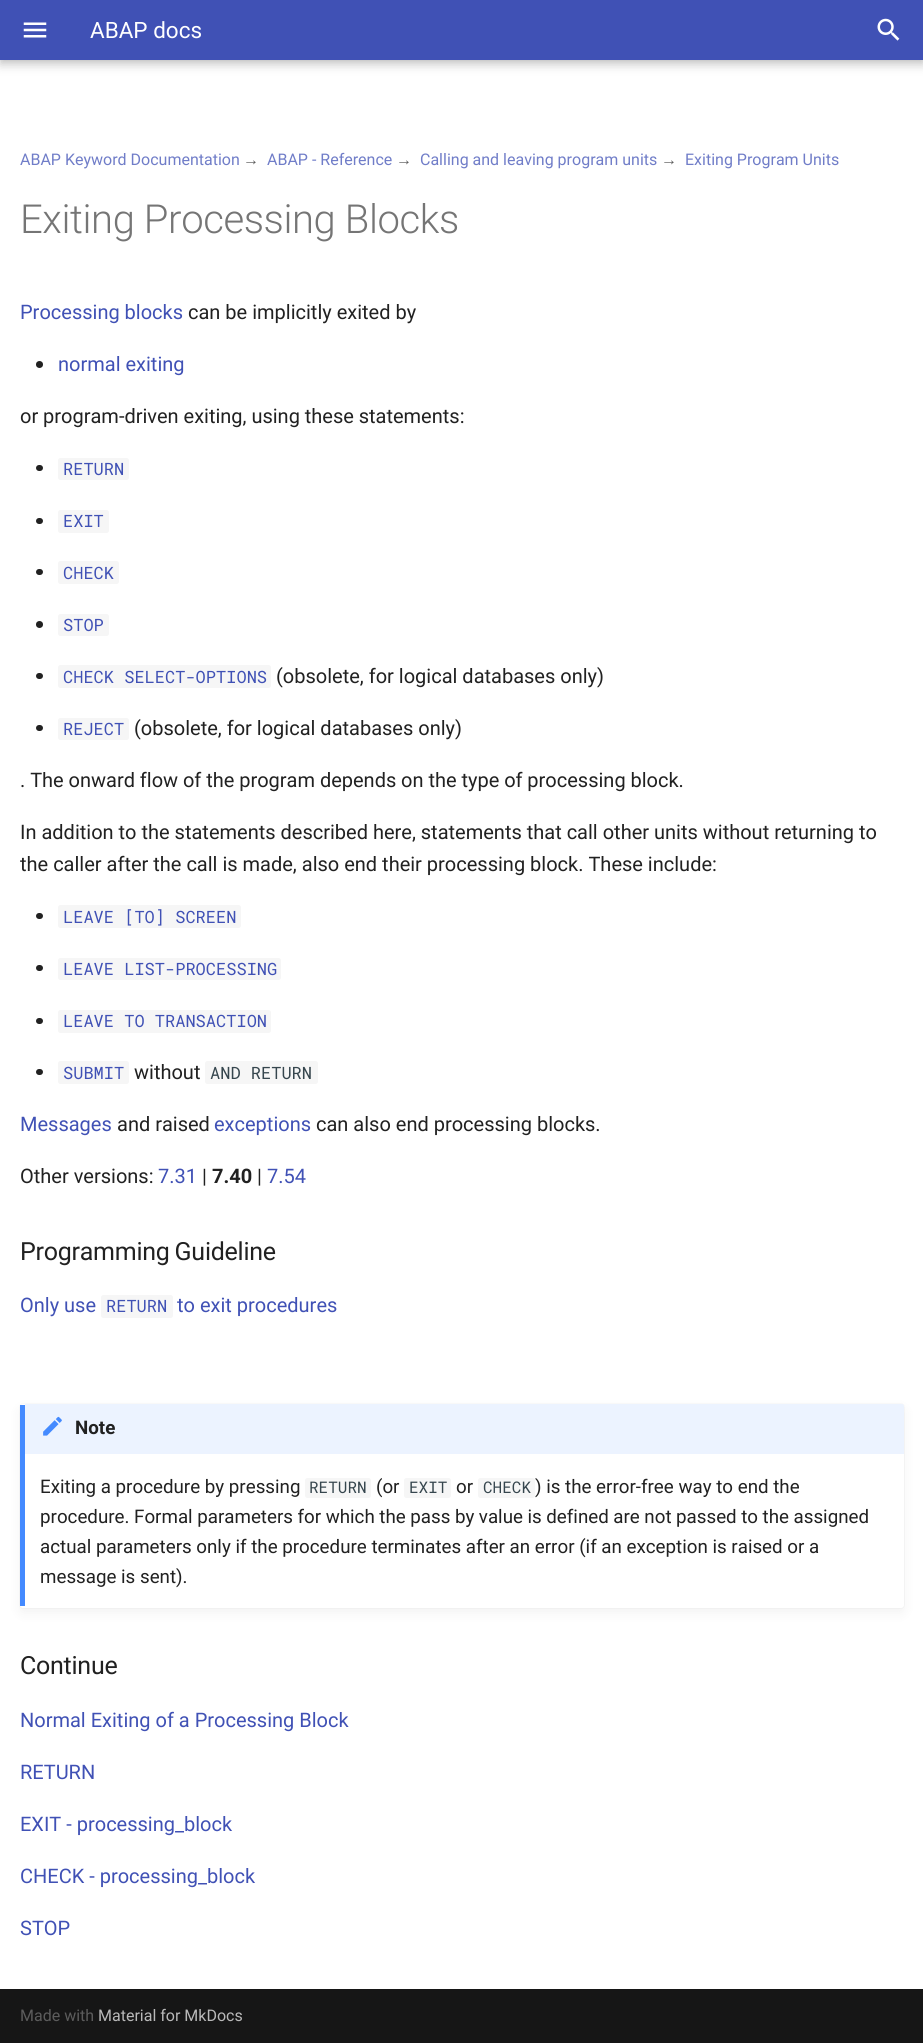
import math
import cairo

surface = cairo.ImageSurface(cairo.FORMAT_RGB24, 923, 2043)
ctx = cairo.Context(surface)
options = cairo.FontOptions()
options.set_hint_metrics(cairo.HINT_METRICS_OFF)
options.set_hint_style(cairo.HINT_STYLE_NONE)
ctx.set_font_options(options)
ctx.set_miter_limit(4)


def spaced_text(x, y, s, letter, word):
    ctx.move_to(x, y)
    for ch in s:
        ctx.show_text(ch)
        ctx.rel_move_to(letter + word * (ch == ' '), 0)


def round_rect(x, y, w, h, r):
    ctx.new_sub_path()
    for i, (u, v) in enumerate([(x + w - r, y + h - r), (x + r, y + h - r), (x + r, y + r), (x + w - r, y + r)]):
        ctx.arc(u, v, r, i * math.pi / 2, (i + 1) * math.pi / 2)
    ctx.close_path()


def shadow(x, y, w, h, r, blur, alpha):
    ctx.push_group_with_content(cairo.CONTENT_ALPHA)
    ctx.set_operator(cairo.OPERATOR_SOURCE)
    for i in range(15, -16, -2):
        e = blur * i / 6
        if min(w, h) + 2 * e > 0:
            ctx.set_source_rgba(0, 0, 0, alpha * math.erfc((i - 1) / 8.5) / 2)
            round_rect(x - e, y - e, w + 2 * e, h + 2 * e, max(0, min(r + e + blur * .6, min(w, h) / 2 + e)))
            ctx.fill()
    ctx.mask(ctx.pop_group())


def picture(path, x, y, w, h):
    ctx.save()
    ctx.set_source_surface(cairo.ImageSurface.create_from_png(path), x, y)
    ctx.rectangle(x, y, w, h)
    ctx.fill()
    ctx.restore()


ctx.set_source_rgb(1, 1, 1)
ctx.paint()
ctx.set_source_rgb(0, 0, 0)
shadow(0, 5, 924, 60, 0, 5, 0.2)
shadow(0, 0, 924, 60, 0, 2.5, 0.1)
ctx.set_source_rgb(0.251, 0.318, 0.71)
ctx.rectangle(0, 0, 923, 60)
ctx.fill()
picture("img1.png", 23, 22, 24, 16)
ctx.select_font_face("Roboto")
ctx.set_font_size(22.5)
ctx.set_source_rgb(1, 1, 1)
ctx.move_to(90, 38)
ctx.show_text("ABAP docs")
picture("img2.png", 877, 18, 23, 23)
ctx.set_font_size(16)
ctx.set_source_rgb(0.439, 0.49, 0.784)
ctx.move_to(20, 165)
ctx.show_text("ABAP Keyword Documentation")
ctx.select_font_face("Liberation Sans")
ctx.set_source_rgb(0.361, 0.361, 0.361)
ctx.move_to(243, 165)
ctx.show_text("→")
ctx.select_font_face("Roboto")
ctx.set_source_rgb(0.439, 0.49, 0.784)
ctx.move_to(267, 165)
ctx.show_text("ABAP - Reference")
ctx.select_font_face("Liberation Sans")
ctx.set_source_rgb(0.361, 0.361, 0.361)
ctx.move_to(396, 165)
ctx.show_text("→")
ctx.select_font_face("Roboto")
ctx.set_source_rgb(0.439, 0.49, 0.784)
ctx.move_to(420, 165)
ctx.show_text("Calling and leaving program units")
ctx.select_font_face("Liberation Sans")
ctx.set_source_rgb(0.361, 0.361, 0.361)
ctx.move_to(661, 165)
ctx.show_text("→")
ctx.select_font_face("Roboto")
ctx.set_source_rgb(0.439, 0.49, 0.784)
ctx.move_to(685, 165)
ctx.show_text("Exiting Program Units")
ctx.select_font_face("Roboto Light")
ctx.set_font_size(40)
ctx.set_source_rgb(0.459, 0.459, 0.459)
spaced_text(20, 233, "Exiting Processing Blocks", -0.4, 0)
ctx.select_font_face("Roboto")
ctx.set_font_size(20)
ctx.set_source_rgb(0.251, 0.318, 0.71)
ctx.move_to(20, 319)
ctx.show_text("Processing blocks")
ctx.set_source_rgb(0.129, 0.129, 0.129)
ctx.move_to(188, 319)
ctx.show_text("can be implicitly exited by")
ctx.new_path()
ctx.arc(39.5, 364.5, 3.5, 0, 2 * math.pi)
ctx.fill()
ctx.set_source_rgb(0.251, 0.318, 0.71)
ctx.move_to(58, 371)
ctx.show_text("normal exiting")
ctx.set_source_rgb(0.129, 0.129, 0.129)
spaced_text(20, 423, "or program-driven exiting, using these statements:", 0, -0.1)
round_rect(36, 465, 7, 6, 3)
ctx.fill()
ctx.set_source_rgb(0.961, 0.961, 0.961)
round_rect(58, 458, 71, 22, 2.5)
ctx.fill()
ctx.select_font_face("Roboto Mono")
ctx.set_font_size(17)
ctx.set_source_rgb(0.251, 0.318, 0.71)
ctx.move_to(63, 475)
ctx.show_text("RETURN")
ctx.set_source_rgb(0.129, 0.129, 0.129)
round_rect(36, 518, 7, 6, 3)
ctx.fill()
ctx.set_source_rgb(0.961, 0.961, 0.961)
round_rect(58, 510, 51, 23, 2.5)
ctx.fill()
ctx.set_source_rgb(0.251, 0.318, 0.71)
ctx.move_to(63, 527)
ctx.show_text("EXIT")
ctx.set_source_rgb(0.129, 0.129, 0.129)
round_rect(36, 569, 7, 6, 3)
ctx.fill()
ctx.set_source_rgb(0.961, 0.961, 0.961)
round_rect(58, 561, 61, 23, 2.5)
ctx.fill()
ctx.set_source_rgb(0.251, 0.318, 0.71)
ctx.move_to(63, 579)
ctx.show_text("CHECK")
ctx.set_source_rgb(0.129, 0.129, 0.129)
ctx.new_path()
ctx.arc(39.5, 624.5, 3.5, 0, 2 * math.pi)
ctx.fill()
ctx.set_source_rgb(0.961, 0.961, 0.961)
round_rect(58, 614, 51, 22, 2.5)
ctx.fill()
ctx.set_source_rgb(0.251, 0.318, 0.71)
ctx.move_to(63, 631)
ctx.show_text("STOP")
ctx.set_source_rgb(0.129, 0.129, 0.129)
round_rect(36, 673, 7, 6, 3)
ctx.fill()
ctx.set_source_rgb(0.961, 0.961, 0.961)
round_rect(58, 665, 213, 23, 2.5)
ctx.fill()
ctx.set_source_rgb(0.251, 0.318, 0.71)
ctx.move_to(63, 683)
ctx.show_text("CHECK SELECT-OPTIONS")
ctx.select_font_face("Roboto")
ctx.set_font_size(20)
ctx.set_source_rgb(0.129, 0.129, 0.129)
ctx.move_to(276, 683)
ctx.show_text("(obsolete, for logical databases only)")
round_rect(36, 725, 7, 6, 3)
ctx.fill()
ctx.set_source_rgb(0.961, 0.961, 0.961)
round_rect(58, 718, 71, 22, 2.5)
ctx.fill()
ctx.select_font_face("Roboto Mono")
ctx.set_font_size(17)
ctx.set_source_rgb(0.251, 0.318, 0.71)
ctx.move_to(63, 735)
ctx.show_text("REJECT")
ctx.select_font_face("Roboto")
ctx.set_font_size(20)
ctx.set_source_rgb(0.129, 0.129, 0.129)
ctx.move_to(134, 735)
ctx.show_text("(obsolete, for logical databases only)")
spaced_text(20, 787, ". The onward flow of the program depends on the type of processing block.", 0, -0.1)
ctx.move_to(20, 839)
ctx.show_text("In addition to the statements described here, statements that call other units without returning to")
ctx.move_to(20, 871)
ctx.show_text("the caller after the call is made, also end their processing block. These include:")
round_rect(36, 913, 7, 6, 3)
ctx.fill()
ctx.set_source_rgb(0.961, 0.961, 0.961)
round_rect(58, 905, 183, 23, 2.5)
ctx.fill()
ctx.select_font_face("Roboto Mono")
ctx.set_font_size(17)
ctx.set_source_rgb(0.251, 0.318, 0.71)
ctx.move_to(63, 923)
ctx.show_text("LEAVE [TO] SCREEN")
ctx.set_source_rgb(0.129, 0.129, 0.129)
round_rect(36, 965, 7, 6, 3)
ctx.fill()
ctx.set_source_rgb(0.961, 0.961, 0.961)
round_rect(58, 958, 223, 22, 2.5)
ctx.fill()
ctx.set_source_rgb(0.251, 0.318, 0.71)
ctx.move_to(63, 975)
ctx.show_text("LEAVE LIST-PROCESSING")
ctx.set_source_rgb(0.129, 0.129, 0.129)
round_rect(36, 1018, 7, 6, 3)
ctx.fill()
ctx.set_source_rgb(0.961, 0.961, 0.961)
round_rect(58, 1010, 213, 23, 2.5)
ctx.fill()
ctx.set_source_rgb(0.251, 0.318, 0.71)
ctx.move_to(63, 1027)
ctx.show_text("LEAVE TO TRANSACTION")
ctx.set_source_rgb(0.129, 0.129, 0.129)
round_rect(36, 1069, 7, 6, 3)
ctx.fill()
ctx.set_source_rgb(0.961, 0.961, 0.961)
round_rect(58, 1061, 71, 23, 2.5)
ctx.fill()
ctx.set_source_rgb(0.251, 0.318, 0.71)
ctx.move_to(63, 1079)
ctx.show_text("SUBMIT")
ctx.select_font_face("Roboto")
ctx.set_font_size(20)
ctx.set_source_rgb(0.129, 0.129, 0.129)
ctx.move_to(134, 1079)
ctx.show_text("without")
ctx.set_source_rgb(0.961, 0.961, 0.961)
round_rect(205, 1061, 113, 23, 2.5)
ctx.fill()
ctx.select_font_face("Roboto Mono")
ctx.set_font_size(17)
ctx.set_source_rgb(0.212, 0.275, 0.306)
ctx.move_to(210, 1079)
ctx.show_text("AND RETURN")
ctx.select_font_face("Roboto")
ctx.set_font_size(20)
ctx.set_source_rgb(0.251, 0.318, 0.71)
ctx.move_to(20, 1131)
ctx.show_text("Messages")
ctx.set_source_rgb(0.129, 0.129, 0.129)
ctx.move_to(117, 1131)
ctx.show_text("and raised")
ctx.set_source_rgb(0.251, 0.318, 0.71)
ctx.move_to(214, 1131)
ctx.show_text("exceptions")
ctx.set_source_rgb(0.129, 0.129, 0.129)
ctx.move_to(316, 1131)
ctx.show_text("can also end processing blocks.")
ctx.move_to(20, 1183)
ctx.show_text("Other versions:")
ctx.set_source_rgb(0.251, 0.318, 0.71)
ctx.move_to(158, 1183)
ctx.show_text("7.31")
ctx.set_source_rgb(0.129, 0.129, 0.129)
ctx.move_to(202, 1183)
ctx.show_text("|")
ctx.select_font_face("Roboto", cairo.FONT_SLANT_NORMAL, cairo.FONT_WEIGHT_BOLD)
ctx.move_to(212, 1183)
ctx.show_text("7.40")
ctx.select_font_face("Roboto")
ctx.move_to(257, 1183)
ctx.show_text("|")
ctx.set_source_rgb(0.251, 0.318, 0.71)
ctx.move_to(267, 1183)
ctx.show_text("7.54")
ctx.set_font_size(25)
ctx.set_source_rgb(0.129, 0.129, 0.129)
spaced_text(20, 1260, "Programming Guideline", -0.25, -1)
ctx.set_font_size(20)
ctx.set_source_rgb(0.251, 0.318, 0.71)
ctx.move_to(20, 1312)
ctx.show_text("Only use")
ctx.set_source_rgb(0.961, 0.961, 0.961)
round_rect(101, 1295, 72, 23, 2.5)
ctx.fill()
ctx.select_font_face("Roboto Mono")
ctx.set_font_size(17)
ctx.set_source_rgb(0.251, 0.318, 0.71)
ctx.move_to(106, 1312)
ctx.show_text("RETURN")
ctx.select_font_face("Roboto")
ctx.set_font_size(20)
ctx.move_to(177, 1312)
ctx.show_text("to exit procedures")
ctx.set_source_rgb(0, 0, 0)
shadow(20, 1404, 884, 204, 2.5, 0.5, 0.1)
shadow(20, 1409, 884, 204, 2.5, 6, 0.05)
ctx.set_source_rgb(1, 1, 1)
round_rect(20, 1404, 884, 204, 2.5)
ctx.fill()
ctx.set_source_rgb(0.267, 0.541, 1)
ctx.rectangle(20, 1405, 5, 201)
ctx.fill()
ctx.set_source_rgb(0.925, 0.953, 1)
ctx.new_path()
ctx.move_to(25, 1454)
ctx.line_to(25, 1404)
ctx.line_to(902, 1404)
ctx.curve_to(903, 1404, 904, 1405, 904, 1406)
ctx.line_to(904, 1454)
ctx.close_path()
ctx.fill()
picture("img3.png", 43, 1416, 19, 20)
ctx.select_font_face("Roboto", cairo.FONT_SLANT_NORMAL, cairo.FONT_WEIGHT_BOLD)
ctx.set_font_size(18.75)
ctx.set_source_rgb(0.129, 0.129, 0.129)
ctx.move_to(75, 1434)
ctx.show_text("Note")
ctx.select_font_face("Roboto")
ctx.move_to(40, 1493)
ctx.show_text("Exiting a procedure by pressing")
ctx.set_source_rgb(0.961, 0.961, 0.961)
round_rect(305, 1478, 66, 20, 2.5)
ctx.fill()
ctx.select_font_face("Roboto Mono")
ctx.set_font_size(16)
ctx.set_source_rgb(0.212, 0.275, 0.306)
ctx.move_to(309, 1493)
ctx.show_text("RETURN")
ctx.select_font_face("Roboto")
ctx.set_font_size(18.75)
ctx.set_source_rgb(0.129, 0.129, 0.129)
ctx.move_to(376, 1493)
ctx.show_text("(or")
ctx.set_source_rgb(0.961, 0.961, 0.961)
round_rect(404, 1478, 47, 20, 2.5)
ctx.fill()
ctx.select_font_face("Roboto Mono")
ctx.set_font_size(16)
ctx.set_source_rgb(0.212, 0.275, 0.306)
ctx.move_to(409, 1493)
ctx.show_text("EXIT")
ctx.select_font_face("Roboto")
ctx.set_font_size(18.75)
ctx.set_source_rgb(0.129, 0.129, 0.129)
ctx.move_to(456, 1493)
ctx.show_text("or")
ctx.set_source_rgb(0.961, 0.961, 0.961)
round_rect(478, 1478, 57, 20, 2.5)
ctx.fill()
ctx.select_font_face("Roboto Mono")
ctx.set_font_size(16)
ctx.set_source_rgb(0.212, 0.275, 0.306)
ctx.move_to(483, 1493)
ctx.show_text("CHECK")
ctx.select_font_face("Roboto")
ctx.set_font_size(18.75)
ctx.set_source_rgb(0.129, 0.129, 0.129)
ctx.move_to(535, 1493)
ctx.show_text(") is the error-free way to end the")
spaced_text(40, 1523, "procedure. Formal parameters for which the pass by value is defined are not passed to the assigned", 0, -0.1)
ctx.move_to(40, 1553)
ctx.show_text("actual parameters only if the procedure terminates after an error (if an exception is raised or a")
ctx.move_to(40, 1583)
ctx.show_text("message is sent).")
ctx.set_font_size(25)
spaced_text(20, 1674, "Continue", -0.25, 0)
ctx.set_font_size(20)
ctx.set_source_rgb(0.251, 0.318, 0.71)
ctx.move_to(20, 1727)
ctx.show_text("Normal Exiting of a Processing Block")
ctx.move_to(20, 1779)
ctx.show_text("RETURN")
ctx.move_to(20, 1831)
ctx.show_text("EXIT - processing_block")
ctx.move_to(20, 1883)
ctx.show_text("CHECK - processing_block")
ctx.move_to(20, 1935)
ctx.show_text("STOP")
ctx.set_source_rgb(0.086, 0.086, 0.086)
ctx.rectangle(0, 1989, 923, 54)
ctx.fill()
ctx.set_font_size(16)
ctx.set_source_rgb(0.361, 0.361, 0.361)
ctx.move_to(20, 2021)
ctx.show_text("Made with")
ctx.set_source_rgb(0.725, 0.725, 0.725)
ctx.move_to(98, 2021)
ctx.show_text("Material for MkDocs")
surface.write_to_png("page.png")
